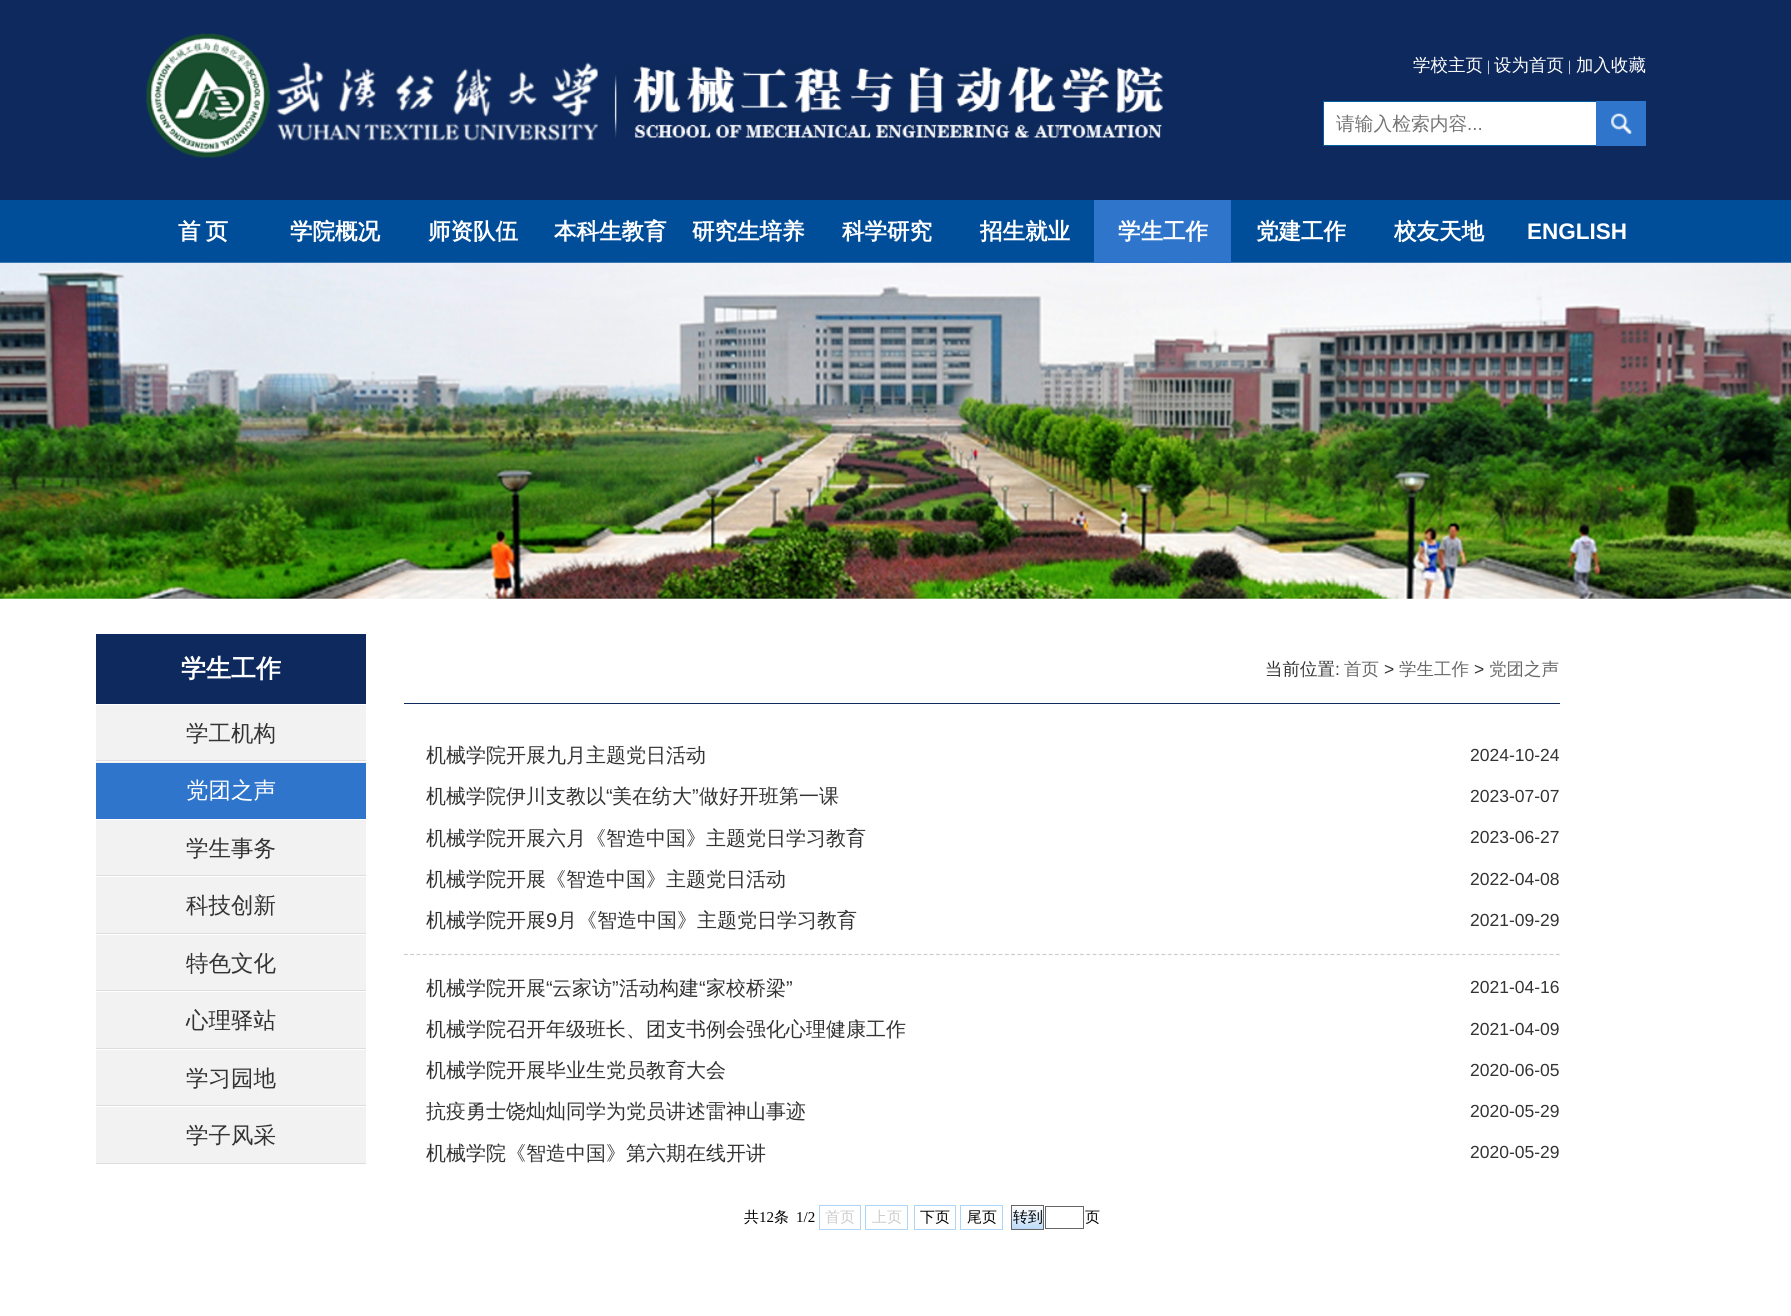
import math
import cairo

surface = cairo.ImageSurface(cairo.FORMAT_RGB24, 1791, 1316)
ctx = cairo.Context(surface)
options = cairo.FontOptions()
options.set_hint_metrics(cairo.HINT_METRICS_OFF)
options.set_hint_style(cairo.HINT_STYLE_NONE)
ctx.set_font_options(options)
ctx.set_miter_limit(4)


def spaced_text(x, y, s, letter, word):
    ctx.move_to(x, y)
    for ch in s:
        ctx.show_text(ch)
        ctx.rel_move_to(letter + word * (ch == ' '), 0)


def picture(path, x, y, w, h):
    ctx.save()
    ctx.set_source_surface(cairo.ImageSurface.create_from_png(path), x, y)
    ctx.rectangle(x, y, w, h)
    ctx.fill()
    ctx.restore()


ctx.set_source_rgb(1, 1, 1)
ctx.paint()
ctx.set_source_rgb(0.051, 0.161, 0.365)
ctx.rectangle(0, 0, 1791, 200)
ctx.fill()
picture("img1.png", 146, 33, 1017, 125)
ctx.select_font_face("WenQuanYi Zen Hei Medium")
ctx.set_font_size(17.5)
ctx.set_source_rgb(1, 1, 1)
ctx.move_to(1413, 71)
ctx.show_text("学校主页")
ctx.select_font_face("Liberation Serif")
ctx.set_font_size(15)
ctx.move_to(1487, 71)
ctx.show_text("|")
ctx.select_font_face("WenQuanYi Zen Hei Medium")
ctx.set_font_size(17.5)
ctx.move_to(1494, 71)
ctx.show_text("设为首页")
ctx.select_font_face("Liberation Serif")
ctx.set_font_size(15)
ctx.move_to(1568, 71)
ctx.show_text("|")
ctx.select_font_face("WenQuanYi Zen Hei Medium")
ctx.set_font_size(17.5)
ctx.move_to(1576, 71)
ctx.show_text("加入收藏")
ctx.rectangle(1324, 102, 272, 43)
ctx.fill()
ctx.set_source_rgb(0.004, 0.365, 0.635)
ctx.rectangle(1323, 101, 273, 1)
ctx.fill()
ctx.rectangle(1323, 145, 273, 1)
ctx.fill()
ctx.rectangle(1323, 101, 1, 45)
ctx.fill()
ctx.set_font_size(18.75)
ctx.set_source_rgb(0.459, 0.459, 0.459)
ctx.move_to(1336, 130)
ctx.show_text("请输入检索内容")
ctx.select_font_face("Liberation Sans")
ctx.move_to(1467, 130)
ctx.show_text("...")
ctx.set_source_rgb(0.18, 0.459, 0.796)
ctx.rectangle(1596, 101, 50, 45)
ctx.fill()
picture("img2.png", 1611, 113, 21, 21)
ctx.set_source_rgb(0, 0.302, 0.6)
ctx.rectangle(0, 200, 1791, 63)
ctx.fill()
ctx.select_font_face("WenQuanYi Zen Hei", cairo.FONT_SLANT_NORMAL, cairo.FONT_WEIGHT_BOLD)
ctx.set_font_size(22.5)
ctx.set_source_rgb(1, 1, 1)
spaced_text(178, 239, "首页", 5, 0)
ctx.move_to(290, 239)
ctx.show_text("学院概况")
ctx.move_to(428, 239)
ctx.show_text("师资队伍")
ctx.move_to(554, 239)
ctx.show_text("本科生教育")
ctx.move_to(692, 239)
ctx.show_text("研究生培养")
ctx.move_to(842, 239)
ctx.show_text("科学研究")
ctx.move_to(980, 239)
ctx.show_text("招生就业")
picture("img3.png", 0, 262, 1791, 337)
ctx.set_source_rgb(0.18, 0.459, 0.796)
ctx.rectangle(1094, 200, 137, 63)
ctx.fill()
ctx.set_source_rgb(1, 1, 1)
ctx.move_to(1118, 239)
ctx.show_text("学生工作")
ctx.move_to(1256, 239)
ctx.show_text("党建工作")
ctx.move_to(1394, 239)
ctx.show_text("校友天地")
ctx.select_font_face("Liberation Sans", cairo.FONT_SLANT_NORMAL, cairo.FONT_WEIGHT_BOLD)
ctx.move_to(1527, 239)
ctx.show_text("ENGLISH")
ctx.set_source_rgb(0.051, 0.161, 0.365)
ctx.rectangle(96, 634, 270, 70)
ctx.fill()
ctx.select_font_face("WenQuanYi Zen Hei", cairo.FONT_SLANT_NORMAL, cairo.FONT_WEIGHT_BOLD)
ctx.set_font_size(25)
ctx.set_source_rgb(1, 1, 1)
ctx.move_to(181, 677)
ctx.show_text("学生工作")
ctx.set_source_rgb(0.949, 0.949, 0.949)
ctx.rectangle(96, 705, 270, 55)
ctx.fill()
ctx.set_source_rgb(0.867, 0.867, 0.867)
ctx.rectangle(96, 760, 270, 1)
ctx.fill()
ctx.select_font_face("WenQuanYi Zen Hei Medium")
ctx.set_font_size(22.5)
ctx.set_source_rgb(0.2, 0.2, 0.2)
ctx.move_to(186, 741)
ctx.show_text("学工机构")
ctx.set_source_rgb(0.949, 0.949, 0.949)
ctx.rectangle(96, 762, 270, 1)
ctx.fill()
ctx.set_source_rgb(0.18, 0.459, 0.796)
ctx.rectangle(96, 763, 270, 56)
ctx.fill()
ctx.set_source_rgb(1, 1, 1)
ctx.move_to(186, 798)
ctx.show_text("党团之声")
ctx.set_source_rgb(0.949, 0.949, 0.949)
ctx.rectangle(96, 820, 270, 55)
ctx.fill()
ctx.set_source_rgb(0.867, 0.867, 0.867)
ctx.rectangle(96, 875, 270, 1)
ctx.fill()
ctx.set_source_rgb(0.2, 0.2, 0.2)
ctx.move_to(186, 856)
ctx.show_text("学生事务")
ctx.set_source_rgb(0.949, 0.949, 0.949)
ctx.rectangle(96, 877, 270, 56)
ctx.fill()
ctx.set_source_rgb(0.867, 0.867, 0.867)
ctx.rectangle(96, 933, 270, 1)
ctx.fill()
ctx.set_source_rgb(0.2, 0.2, 0.2)
ctx.move_to(186, 913)
ctx.show_text("科技创新")
ctx.set_source_rgb(0.949, 0.949, 0.949)
ctx.rectangle(96, 935, 270, 55)
ctx.fill()
ctx.set_source_rgb(0.867, 0.867, 0.867)
ctx.rectangle(96, 990, 270, 1)
ctx.fill()
ctx.set_source_rgb(0.2, 0.2, 0.2)
ctx.move_to(186, 971)
ctx.show_text("特色文化")
ctx.set_source_rgb(0.949, 0.949, 0.949)
ctx.rectangle(96, 992, 270, 56)
ctx.fill()
ctx.set_source_rgb(0.867, 0.867, 0.867)
ctx.rectangle(96, 1048, 270, 1)
ctx.fill()
ctx.set_source_rgb(0.2, 0.2, 0.2)
ctx.move_to(186, 1028)
ctx.show_text("心理驿站")
ctx.set_source_rgb(0.949, 0.949, 0.949)
ctx.rectangle(96, 1050, 270, 55)
ctx.fill()
ctx.set_source_rgb(0.867, 0.867, 0.867)
ctx.rectangle(96, 1105, 270, 1)
ctx.fill()
ctx.set_source_rgb(0.2, 0.2, 0.2)
ctx.move_to(186, 1086)
ctx.show_text("学习园地")
ctx.set_source_rgb(0.949, 0.949, 0.949)
ctx.rectangle(96, 1107, 270, 56)
ctx.fill()
ctx.set_source_rgb(0.867, 0.867, 0.867)
ctx.rectangle(96, 1163, 270, 1)
ctx.fill()
ctx.set_source_rgb(0.2, 0.2, 0.2)
ctx.move_to(186, 1143)
ctx.show_text("学子风采")
ctx.set_source_rgb(0.051, 0.161, 0.365)
ctx.rectangle(404, 703, 1156, 1)
ctx.fill()
ctx.set_font_size(17.5)
ctx.set_source_rgb(0.2, 0.2, 0.2)
ctx.move_to(1265, 675)
ctx.show_text("当前位置")
ctx.select_font_face("Liberation Sans")
ctx.move_to(1335, 675)
ctx.show_text(":")
ctx.select_font_face("WenQuanYi Zen Hei Medium")
ctx.set_source_rgb(0.412, 0.412, 0.412)
ctx.move_to(1344, 675)
ctx.show_text("首页")
ctx.select_font_face("Liberation Sans")
ctx.set_source_rgb(0.2, 0.2, 0.2)
ctx.move_to(1384, 675)
ctx.show_text(">")
ctx.select_font_face("WenQuanYi Zen Hei Medium")
ctx.set_source_rgb(0.412, 0.412, 0.412)
ctx.move_to(1399, 675)
ctx.show_text("学生工作")
ctx.select_font_face("Liberation Sans")
ctx.set_source_rgb(0.2, 0.2, 0.2)
ctx.move_to(1474, 675)
ctx.show_text(">")
ctx.select_font_face("WenQuanYi Zen Hei Medium")
ctx.set_source_rgb(0.412, 0.412, 0.412)
ctx.move_to(1489, 675)
ctx.show_text("党团之声")
ctx.set_font_size(20)
ctx.set_source_rgb(0.2, 0.2, 0.2)
ctx.move_to(426, 762)
ctx.show_text("机械学院开展九月主题党日活动")
ctx.select_font_face("Liberation Sans")
ctx.set_font_size(17.5)
ctx.move_to(1470, 761)
ctx.show_text("2024-10-24")
ctx.select_font_face("WenQuanYi Zen Hei Medium")
ctx.set_font_size(20)
ctx.move_to(426, 803)
ctx.show_text("机械学院伊川支教以")
ctx.select_font_face("Liberation Sans")
ctx.move_to(606, 803)
ctx.show_text("“")
ctx.select_font_face("WenQuanYi Zen Hei Medium")
ctx.move_to(612, 803)
ctx.show_text("美在纺大")
ctx.select_font_face("Liberation Sans")
ctx.move_to(692, 803)
ctx.show_text("”")
ctx.select_font_face("WenQuanYi Zen Hei Medium")
ctx.move_to(699, 803)
ctx.show_text("做好开班第一课")
ctx.select_font_face("Liberation Sans")
ctx.set_font_size(17.5)
ctx.move_to(1470, 802)
ctx.show_text("2023-07-07")
ctx.select_font_face("WenQuanYi Zen Hei Medium")
ctx.set_font_size(20)
ctx.move_to(426, 845)
ctx.show_text("机械学院开展六月《智造中国》主题党日学习教育")
ctx.select_font_face("Liberation Sans")
ctx.set_font_size(17.5)
ctx.move_to(1470, 843)
ctx.show_text("2023-06-27")
ctx.select_font_face("WenQuanYi Zen Hei Medium")
ctx.set_font_size(20)
ctx.move_to(426, 886)
ctx.show_text("机械学院开展《智造中国》主题党日活动")
ctx.select_font_face("Liberation Sans")
ctx.set_font_size(17.5)
ctx.move_to(1470, 885)
ctx.show_text("2022-04-08")
ctx.select_font_face("WenQuanYi Zen Hei Medium")
ctx.set_font_size(20)
ctx.move_to(426, 927)
ctx.show_text("机械学院开展")
ctx.select_font_face("Liberation Sans")
ctx.move_to(546, 927)
ctx.show_text("9")
ctx.select_font_face("WenQuanYi Zen Hei Medium")
ctx.move_to(557, 927)
ctx.show_text("月《智造中国》主题党日学习教育")
ctx.select_font_face("Liberation Sans")
ctx.set_font_size(17.5)
ctx.move_to(1470, 926)
ctx.show_text("2021-09-29")
ctx.new_path()
ctx.move_to(404, 954.5)
ctx.line_to(1560, 954.5)
ctx.set_source_rgb(0.8, 0.8, 0.8)
ctx.set_line_width(1.2)
ctx.set_dash([3.75, 2.51])
ctx.stroke()
ctx.select_font_face("WenQuanYi Zen Hei Medium")
ctx.set_font_size(20)
ctx.set_source_rgb(0.2, 0.2, 0.2)
ctx.move_to(426, 995)
ctx.show_text("机械学院开展")
ctx.select_font_face("Liberation Sans")
ctx.move_to(546, 995)
ctx.show_text("“")
ctx.select_font_face("WenQuanYi Zen Hei Medium")
ctx.move_to(552, 995)
ctx.show_text("云家访")
ctx.select_font_face("Liberation Sans")
ctx.move_to(612, 995)
ctx.show_text("”")
ctx.select_font_face("WenQuanYi Zen Hei Medium")
ctx.move_to(619, 995)
ctx.show_text("活动构建")
ctx.select_font_face("Liberation Sans")
ctx.move_to(699, 995)
ctx.show_text("“")
ctx.select_font_face("WenQuanYi Zen Hei Medium")
ctx.move_to(706, 995)
ctx.show_text("家校桥梁")
ctx.select_font_face("Liberation Sans")
ctx.move_to(786, 995)
ctx.show_text("”")
ctx.set_font_size(17.5)
ctx.move_to(1470, 993)
ctx.show_text("2021-04-16")
ctx.select_font_face("WenQuanYi Zen Hei Medium")
ctx.set_font_size(20)
ctx.move_to(426, 1036)
ctx.show_text("机械学院召开年级班长、团支书例会强化心理健康工作")
ctx.select_font_face("Liberation Sans")
ctx.set_font_size(17.5)
ctx.move_to(1470, 1035)
ctx.show_text("2021-04-09")
ctx.select_font_face("WenQuanYi Zen Hei Medium")
ctx.set_font_size(20)
ctx.move_to(426, 1077)
ctx.show_text("机械学院开展毕业生党员教育大会")
ctx.select_font_face("Liberation Sans")
ctx.set_font_size(17.5)
ctx.move_to(1470, 1076)
ctx.show_text("2020-06-05")
ctx.select_font_face("WenQuanYi Zen Hei Medium")
ctx.set_font_size(20)
ctx.move_to(426, 1118)
ctx.show_text("抗疫勇士饶灿灿同学为党员讲述雷神山事迹")
ctx.select_font_face("Liberation Sans")
ctx.set_font_size(17.5)
ctx.move_to(1470, 1117)
ctx.show_text("2020-05-29")
ctx.select_font_face("WenQuanYi Zen Hei Medium")
ctx.set_font_size(20)
ctx.move_to(426, 1160)
ctx.show_text("机械学院《智造中国》第六期在线开讲")
ctx.select_font_face("Liberation Sans")
ctx.set_font_size(17.5)
ctx.move_to(1470, 1158)
ctx.show_text("2020-05-29")
ctx.select_font_face("WenQuanYi Zen Hei Medium")
ctx.set_font_size(15)
ctx.set_source_rgb(0, 0, 0)
ctx.move_to(744, 1222)
ctx.show_text("共")
ctx.select_font_face("Liberation Serif")
ctx.move_to(759, 1222)
ctx.show_text("12")
ctx.select_font_face("WenQuanYi Zen Hei Medium")
ctx.move_to(774, 1222)
ctx.show_text("条")
ctx.select_font_face("Liberation Serif")
ctx.move_to(796, 1222)
ctx.show_text("1/2")
ctx.rectangle(819.5, 1205.5, 41, 24)
ctx.set_source_rgb(0.686, 0.835, 0.961)
ctx.set_line_width(1)
ctx.set_dash([])
ctx.stroke()
ctx.select_font_face("WenQuanYi Zen Hei Medium")
ctx.set_source_rgb(0.8, 0.8, 0.8)
ctx.move_to(825, 1222)
ctx.show_text("首页")
ctx.rectangle(865.5, 1205.5, 42, 24)
ctx.set_source_rgb(0.686, 0.835, 0.961)
ctx.stroke()
ctx.set_source_rgb(0.8, 0.8, 0.8)
ctx.move_to(872, 1222)
ctx.show_text("上页")
ctx.rectangle(914.5, 1205.5, 41, 24)
ctx.set_source_rgb(0.686, 0.835, 0.961)
ctx.stroke()
ctx.set_source_rgb(0, 0, 0)
ctx.move_to(920, 1222)
ctx.show_text("下页")
ctx.rectangle(960.5, 1205.5, 42, 24)
ctx.set_source_rgb(0.686, 0.835, 0.961)
ctx.stroke()
ctx.set_source_rgb(0, 0, 0)
ctx.move_to(967, 1222)
ctx.show_text("尾页")
gradient = cairo.LinearGradient(1013, 1206, 1013, 1229)
gradient.add_color_stop_rgba(0, 1, 1, 1, 1)
gradient.add_color_stop_rgba(1, 0.741, 0.859, 0.969, 1)
ctx.set_source(gradient)
ctx.rectangle(1012, 1207, 31, 22)
ctx.fill()
ctx.rectangle(1011.5, 1205.5, 32, 24)
ctx.set_source_rgb(0.4, 0.4, 0.4)
ctx.stroke()
ctx.set_source_rgb(0, 0, 0)
ctx.move_to(1013, 1222)
ctx.show_text("转到")
ctx.rectangle(1045.5, 1206.5, 38, 22)
ctx.set_source_rgb(0.4, 0.4, 0.4)
ctx.stroke()
ctx.set_source_rgb(0, 0, 0)
ctx.move_to(1085, 1222)
ctx.show_text("页")
surface.write_to_png("page.png")
